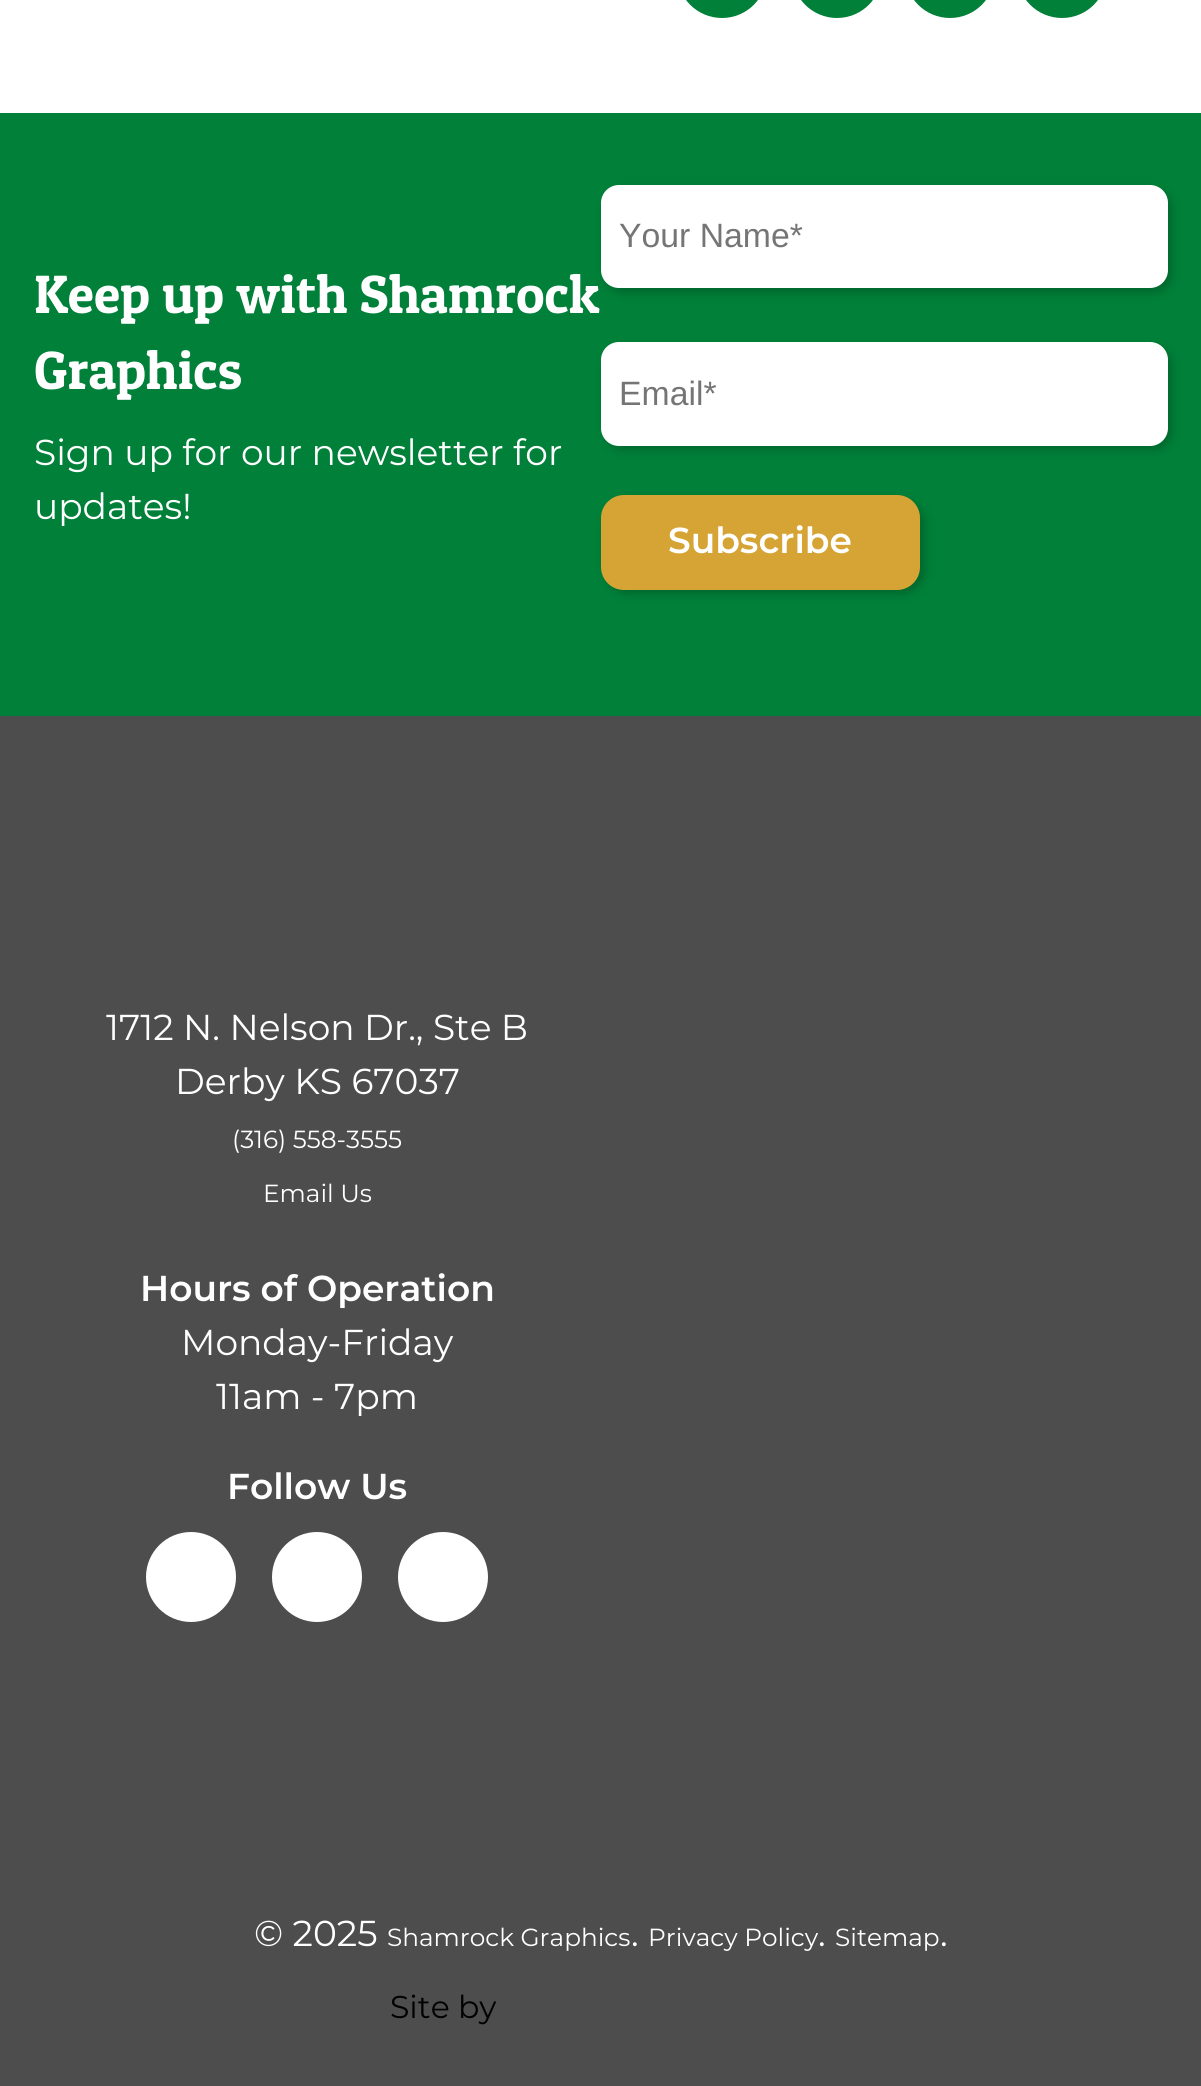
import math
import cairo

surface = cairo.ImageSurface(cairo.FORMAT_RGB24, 1201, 2086)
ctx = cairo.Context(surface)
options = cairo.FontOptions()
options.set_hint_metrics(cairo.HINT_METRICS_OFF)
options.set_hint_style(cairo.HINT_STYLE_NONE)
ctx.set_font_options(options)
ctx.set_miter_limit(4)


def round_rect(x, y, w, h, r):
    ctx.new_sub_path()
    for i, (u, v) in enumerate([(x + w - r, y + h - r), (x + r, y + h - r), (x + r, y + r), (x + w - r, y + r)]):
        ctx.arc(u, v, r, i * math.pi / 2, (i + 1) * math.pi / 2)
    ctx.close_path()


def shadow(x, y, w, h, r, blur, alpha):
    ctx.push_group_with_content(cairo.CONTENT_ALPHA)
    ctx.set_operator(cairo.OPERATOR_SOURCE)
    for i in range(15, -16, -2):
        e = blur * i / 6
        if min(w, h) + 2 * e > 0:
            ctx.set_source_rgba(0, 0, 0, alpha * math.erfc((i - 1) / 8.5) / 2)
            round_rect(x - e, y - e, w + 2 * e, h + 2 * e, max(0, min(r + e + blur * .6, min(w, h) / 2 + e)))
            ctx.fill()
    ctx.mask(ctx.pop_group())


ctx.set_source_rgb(1, 1, 1)
ctx.paint()
ctx.set_source_rgb(0, 0.502, 0.22)
round_rect(677, -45, 90, 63, 45)
ctx.fill()
round_rect(792, -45, 90, 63, 45)
ctx.fill()
round_rect(905, -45, 90, 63, 45)
ctx.fill()
round_rect(1017, -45, 90, 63, 45)
ctx.fill()
ctx.rectangle(0, 113, 1201, 603)
ctx.fill()
ctx.select_font_face("Patua One")
ctx.set_font_size(54)
ctx.set_source_rgb(1, 1, 1)
ctx.move_to(34, 313)
ctx.show_text("Keep up with Shamrock")
ctx.move_to(34, 389)
ctx.show_text("Graphics")
ctx.select_font_face("Montserrat")
ctx.set_font_size(36)
ctx.move_to(34, 465)
ctx.show_text("Sign up for our newsletter for")
ctx.move_to(34, 519)
ctx.show_text("updates!")
ctx.set_source_rgb(0, 0, 0)
shadow(605, 189, 567, 104, 18, 4.5, 0.2)
ctx.set_source_rgb(1, 1, 1)
round_rect(601, 185, 567, 103, 18)
ctx.fill()
ctx.select_font_face("Liberation Sans")
ctx.set_font_size(33.75)
ctx.set_source_rgb(0.459, 0.459, 0.459)
ctx.move_to(619, 247)
ctx.show_text("Your Name*")
ctx.set_source_rgb(0, 0, 0)
shadow(605, 347, 567, 103, 18, 4.5, 0.2)
ctx.set_source_rgb(1, 1, 1)
round_rect(601, 342, 567, 104, 18)
ctx.fill()
ctx.set_source_rgb(0.459, 0.459, 0.459)
ctx.move_to(619, 405)
ctx.show_text("Email*")
ctx.set_source_rgb(0, 0, 0)
shadow(605, 500, 320, 94, 23, 4.5, 0.2)
ctx.set_source_rgb(0.839, 0.643, 0.208)
round_rect(601, 495, 319, 95, 23)
ctx.fill()
ctx.select_font_face("Montserrat SemiBold")
ctx.set_font_size(36)
ctx.set_source_rgb(1, 1, 1)
ctx.move_to(668, 553)
ctx.show_text("Subscribe")
ctx.set_source_rgb(0.302, 0.302, 0.302)
ctx.rectangle(0, 716, 1201, 1370)
ctx.fill()
ctx.select_font_face("Montserrat")
ctx.set_source_rgb(1, 1, 1)
ctx.move_to(106, 1040)
ctx.show_text("1712 N. Nelson Dr., Ste B")
ctx.move_to(175, 1094)
ctx.show_text("Derby KS 67037")
ctx.set_font_size(24.75)
ctx.move_to(232, 1148)
ctx.show_text("(316) 558-3555")
ctx.move_to(263, 1202)
ctx.show_text("Email Us")
ctx.select_font_face("Montserrat SemiBold")
ctx.set_font_size(36)
ctx.move_to(140, 1301)
ctx.show_text("Hours of Operation")
ctx.select_font_face("Montserrat")
ctx.move_to(181, 1355)
ctx.show_text("Monday-Friday")
ctx.move_to(216, 1409)
ctx.show_text("11am - 7pm")
ctx.select_font_face("Montserrat SemiBold")
ctx.move_to(227, 1499)
ctx.show_text("Follow Us")
ctx.new_path()
ctx.arc(191, 1577, 45, 0, 2 * math.pi)
ctx.fill()
ctx.arc(317, 1577, 45, 0, 2 * math.pi)
ctx.fill()
ctx.arc(443, 1577, 45, 0, 2 * math.pi)
ctx.fill()
ctx.select_font_face("Montserrat")
ctx.move_to(254, 1946)
ctx.show_text("© 2025")
ctx.set_font_size(24.75)
ctx.move_to(387, 1946)
ctx.show_text("Shamrock Graphics")
ctx.set_font_size(36)
ctx.move_to(631, 1946)
ctx.show_text(".")
ctx.set_font_size(24.75)
ctx.move_to(648, 1946)
ctx.show_text("Privacy Policy")
ctx.set_font_size(36)
ctx.move_to(818, 1946)
ctx.show_text(".")
ctx.set_font_size(24.75)
ctx.move_to(835, 1946)
ctx.show_text("Sitemap")
ctx.set_font_size(36)
ctx.move_to(940, 1946)
ctx.show_text(".")
ctx.set_font_size(31.5)
ctx.set_source_rgb(0, 0, 0)
ctx.move_to(390, 2018)
ctx.show_text("Site by")
surface.write_to_png("page.png")
